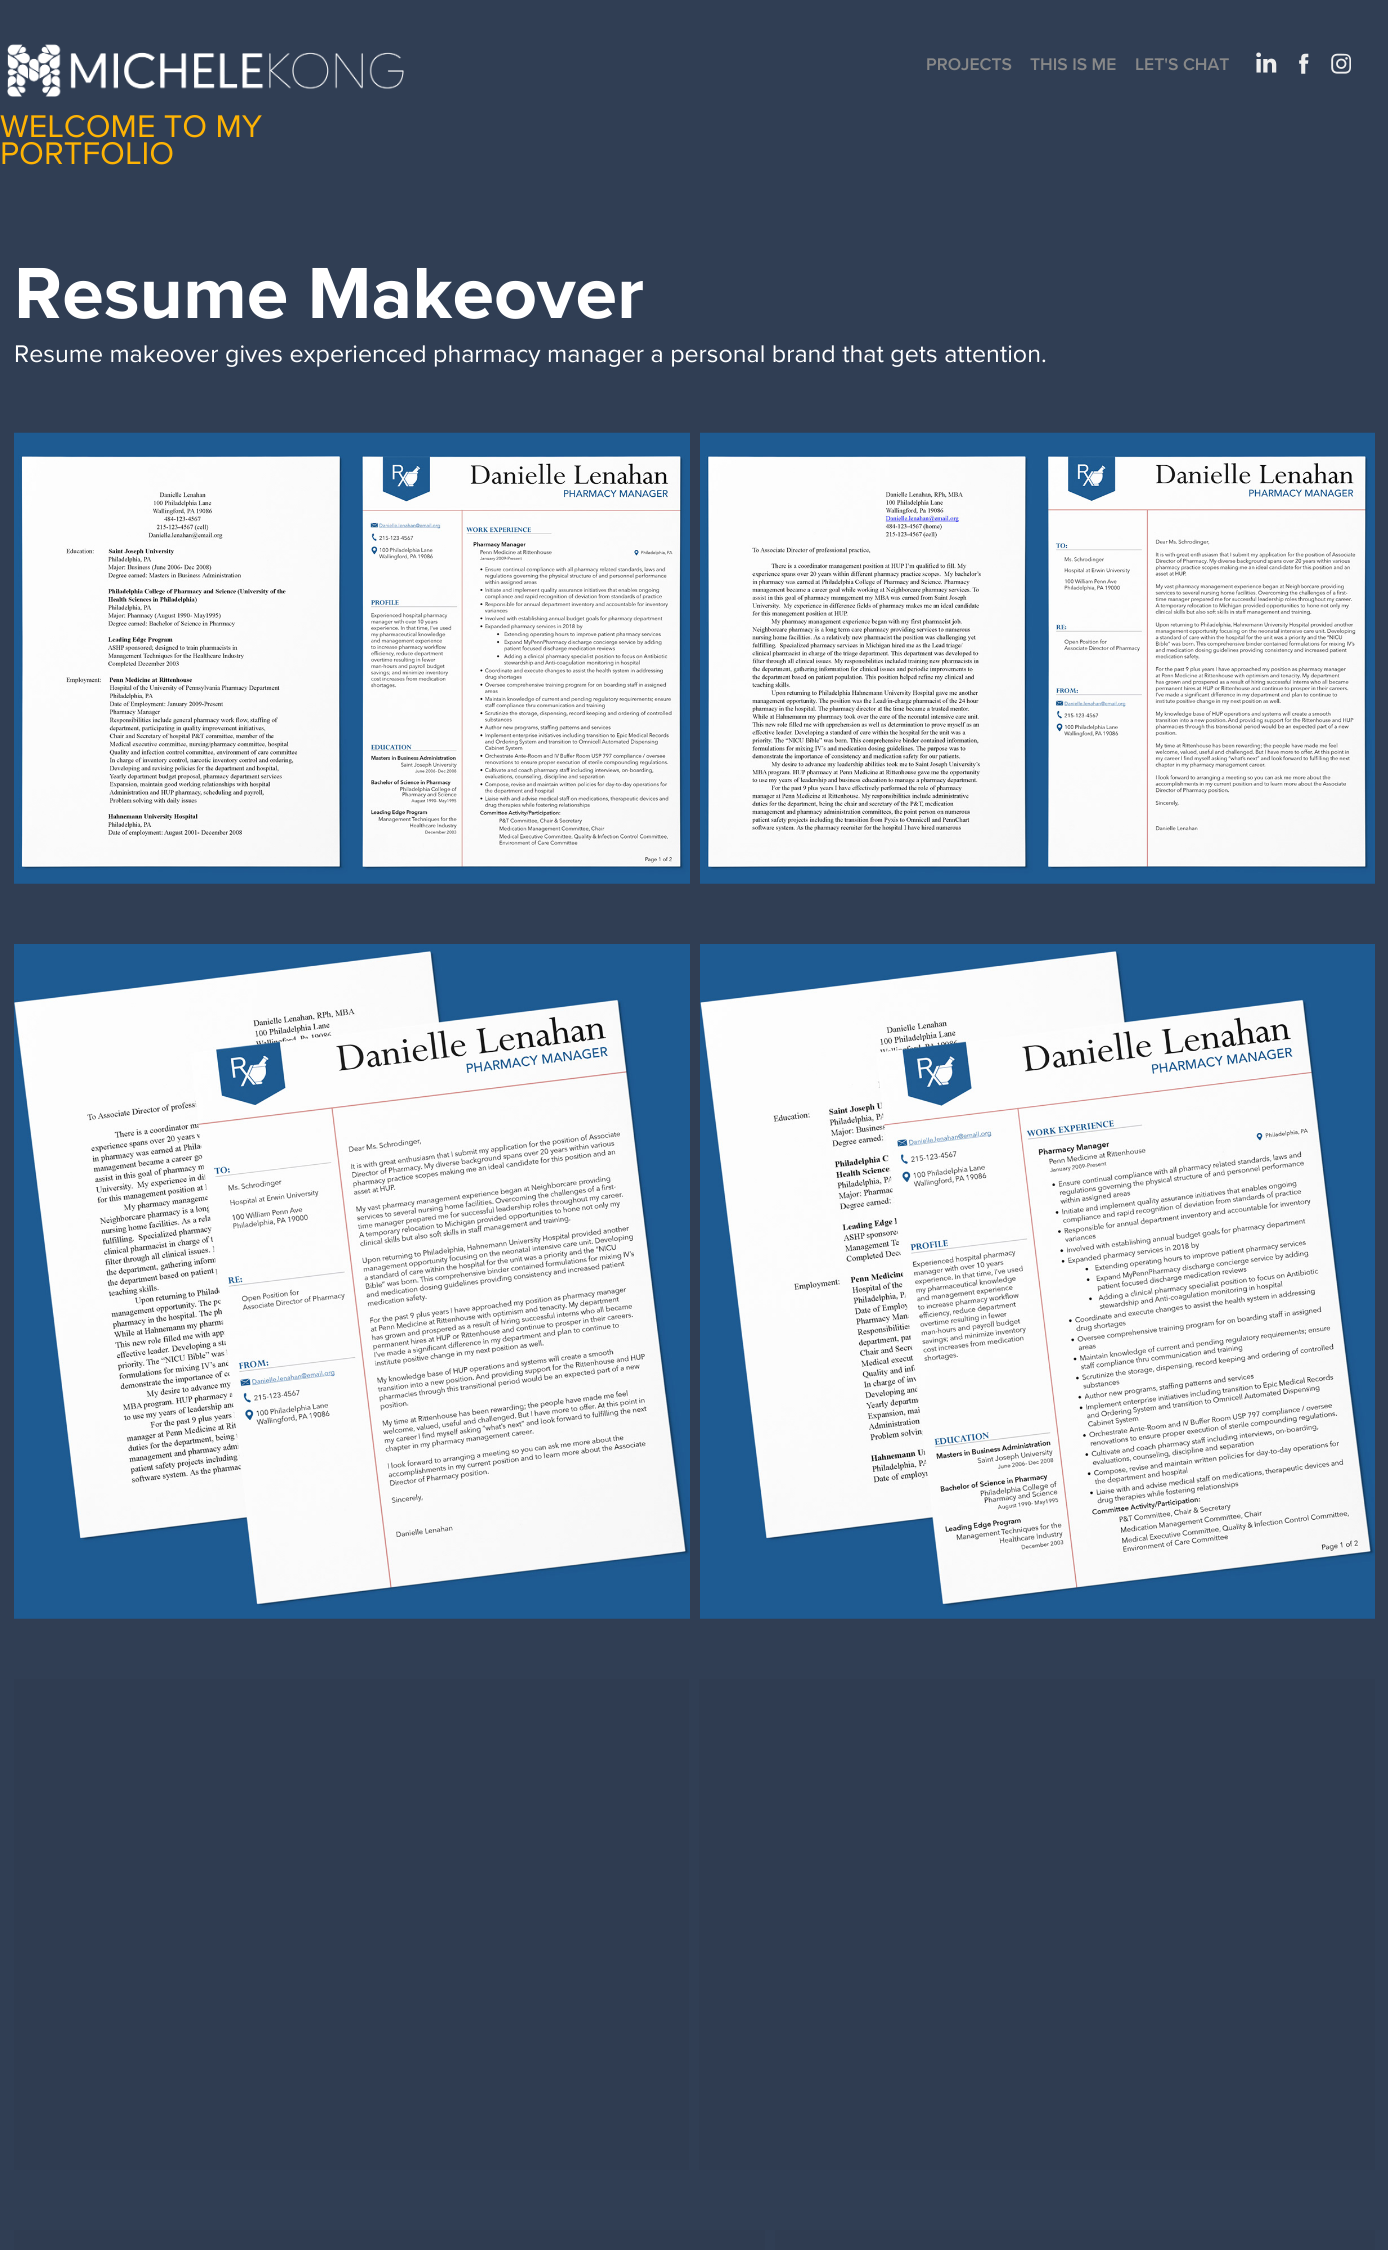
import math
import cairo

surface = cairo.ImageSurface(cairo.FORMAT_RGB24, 1388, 2250)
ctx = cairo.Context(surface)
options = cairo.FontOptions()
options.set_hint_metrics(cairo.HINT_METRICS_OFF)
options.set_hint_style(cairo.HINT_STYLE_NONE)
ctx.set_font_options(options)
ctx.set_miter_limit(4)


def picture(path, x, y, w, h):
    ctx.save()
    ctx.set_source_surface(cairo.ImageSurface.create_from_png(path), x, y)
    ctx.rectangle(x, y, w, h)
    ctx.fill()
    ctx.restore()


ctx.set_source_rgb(0.188, 0.243, 0.329)
ctx.paint()
ctx.select_font_face("Proxima Nova SemiBold")
ctx.set_font_size(17.5)
ctx.set_source_rgb(0.533, 0.533, 0.533)
ctx.move_to(926, 70)
ctx.show_text("PROJECTS")
ctx.move_to(1030, 70)
ctx.show_text("THIS IS ME")
ctx.move_to(1135, 70)
ctx.show_text("LET'S CHAT")
picture("img1.png", 1256, 52, 21, 21)
picture("img2.png", 1299, 53, 10, 21)
picture("img3.png", 1331, 53, 20, 21)
picture("img4.png", 7, 44, 397, 53)
ctx.select_font_face("Proxima Nova")
ctx.set_font_size(32.5)
ctx.set_source_rgb(0.996, 0.702, 0.016)
ctx.move_to(0, 137)
ctx.show_text("WELCOME TO MY")
ctx.move_to(0, 164)
ctx.show_text("PORTFOLIO")
ctx.select_font_face("Proxima Nova", cairo.FONT_SLANT_NORMAL, cairo.FONT_WEIGHT_BOLD)
ctx.set_font_size(75)
ctx.set_source_rgb(1, 1, 1)
ctx.move_to(14, 318)
ctx.show_text("Resume Makeover")
ctx.select_font_face("Proxima Nova")
ctx.set_font_size(25)
ctx.move_to(14, 362)
ctx.show_text("Resume makeover gives experienced pharmacy manager a personal brand that gets attention.")
picture("img5.png", 14, 432, 676, 452)
picture("img6.png", 700, 432, 675, 452)
picture("img7.png", 14, 944, 676, 675)
picture("img8.png", 700, 944, 675, 675)
ctx.set_source_rgb(0.184, 0.235, 0.318)
ctx.rectangle(14, 1679, 675, 491)
ctx.fill()
ctx.rectangle(699, 1679, 676, 491)
ctx.fill()
ctx.rectangle(14, 2230, 751, 20)
ctx.fill()
ctx.rectangle(775, 2230, 600, 20)
ctx.fill()
surface.write_to_png("page.png")
